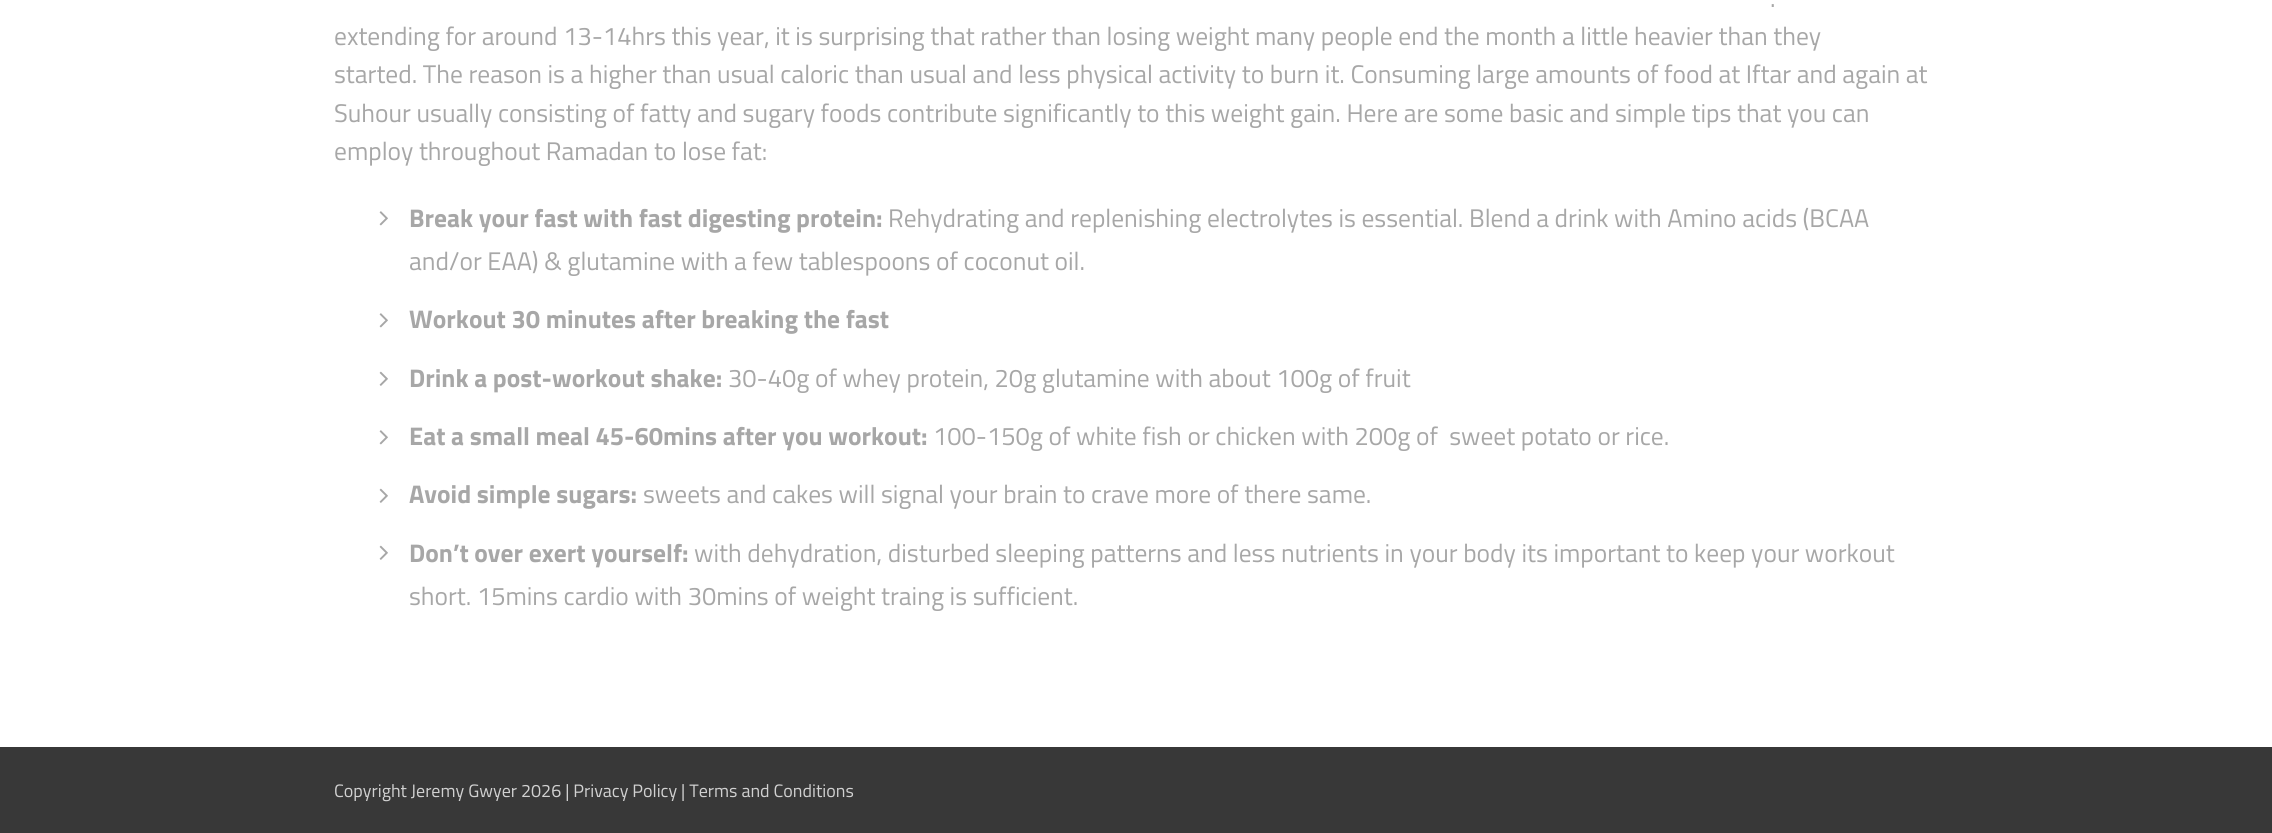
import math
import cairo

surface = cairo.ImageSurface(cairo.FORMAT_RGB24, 2272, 833)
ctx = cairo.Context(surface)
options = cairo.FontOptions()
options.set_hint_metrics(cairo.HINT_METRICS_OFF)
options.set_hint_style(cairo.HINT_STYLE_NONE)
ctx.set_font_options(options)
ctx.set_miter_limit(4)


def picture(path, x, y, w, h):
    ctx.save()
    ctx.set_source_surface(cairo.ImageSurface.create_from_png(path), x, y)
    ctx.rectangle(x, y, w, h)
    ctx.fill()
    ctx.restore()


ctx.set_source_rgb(1, 1, 1)
ctx.paint()
ctx.select_font_face("Titillium Web")
ctx.set_font_size(25.5)
ctx.set_source_rgb(0.655, 0.655, 0.655)
ctx.move_to(1770, 7)
ctx.show_text(".")
ctx.move_to(334, 45)
ctx.show_text("extending for around 13-14hrs this year, it is surprising that rather than losing weight many people end the month a little heavier than they")
ctx.move_to(334, 83)
ctx.show_text("started. The reason is a higher than usual caloric than usual and less physical activity to burn it. Consuming large amounts of food at Iftar and again at")
ctx.move_to(334, 122)
ctx.show_text("Suhour usually consisting of fatty and sugary foods contribute significantly to this weight gain. Here are some basic and simple tips that you can")
ctx.move_to(334, 160)
ctx.show_text("employ throughout Ramadan to lose fat:")
picture("img1.png", 379, 211, 9, 15)
ctx.select_font_face("Titillium Web", cairo.FONT_SLANT_NORMAL, cairo.FONT_WEIGHT_BOLD)
ctx.move_to(409, 227)
ctx.show_text("Break your fast with fast digesting protein:")
ctx.select_font_face("Titillium Web")
ctx.move_to(888, 227)
ctx.show_text("Rehydrating and replenishing electrolytes is essential. Blend a drink with Amino acids (BCAA")
ctx.move_to(409, 270)
ctx.show_text("and/or EAA) & glutamine with a few tablespoons of coconut oil.")
picture("img1.png", 379, 313, 9, 15)
ctx.select_font_face("Titillium Web", cairo.FONT_SLANT_NORMAL, cairo.FONT_WEIGHT_BOLD)
ctx.move_to(409, 328)
ctx.show_text("Workout 30 minutes after breaking the fast")
picture("img2.png", 379, 371, 9, 15)
ctx.move_to(409, 387)
ctx.show_text("Drink a post-workout shake:")
ctx.select_font_face("Titillium Web")
ctx.move_to(728, 387)
ctx.show_text("30-40g of whey protein, 20g glutamine with about 100g of fruit")
picture("img1.png", 379, 430, 9, 15)
ctx.select_font_face("Titillium Web", cairo.FONT_SLANT_NORMAL, cairo.FONT_WEIGHT_BOLD)
ctx.move_to(409, 445)
ctx.show_text("Eat a small meal 45-60mins after you workout:")
ctx.select_font_face("Titillium Web")
ctx.move_to(933, 445)
ctx.show_text("100-150g of white fish or chicken with 200g of  sweet potato or rice.")
picture("img2.png", 379, 488, 9, 15)
ctx.select_font_face("Titillium Web", cairo.FONT_SLANT_NORMAL, cairo.FONT_WEIGHT_BOLD)
ctx.move_to(409, 503)
ctx.show_text("Avoid simple sugars:")
ctx.select_font_face("Titillium Web")
ctx.move_to(643, 503)
ctx.show_text("sweets and cakes will signal your brain to crave more of there same.")
picture("img2.png", 379, 545, 9, 15)
ctx.select_font_face("Titillium Web", cairo.FONT_SLANT_NORMAL, cairo.FONT_WEIGHT_BOLD)
ctx.move_to(409, 562)
ctx.show_text("Don’t over exert yourself:")
ctx.select_font_face("Titillium Web")
ctx.move_to(694, 562)
ctx.show_text("with dehydration, disturbed sleeping patterns and less nutrients in your body its important to keep your workout")
ctx.move_to(409, 605)
ctx.show_text("short. 15mins cardio with 30mins of weight traing is sufficient.")
ctx.set_source_rgb(0.22, 0.22, 0.22)
ctx.rectangle(0, 747, 2272, 86)
ctx.fill()
ctx.set_font_size(18)
ctx.set_source_rgb(0.82, 0.82, 0.82)
ctx.move_to(334, 797)
ctx.show_text("Copyright Jeremy Gwyer 2026 | Privacy Policy | Terms and Conditions")
surface.write_to_png("page.png")
